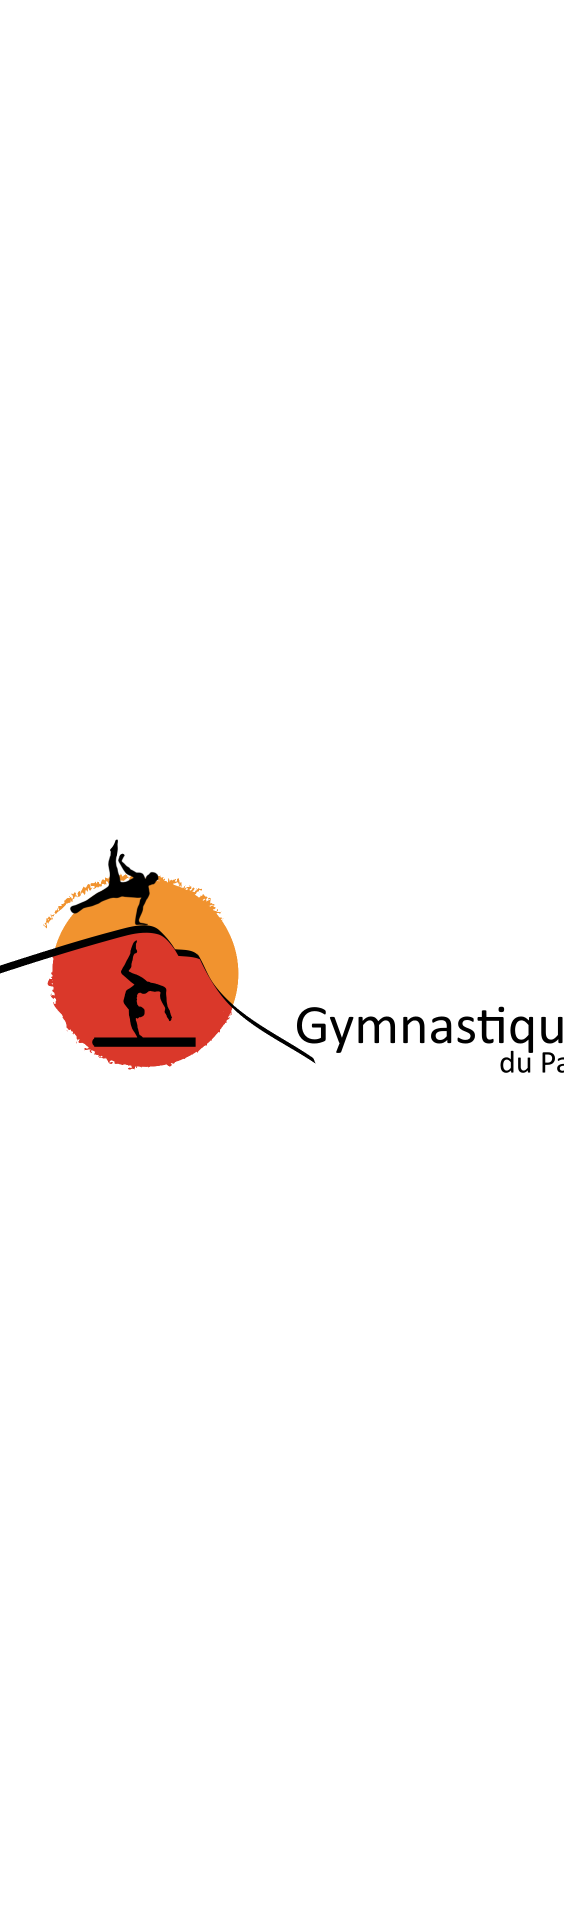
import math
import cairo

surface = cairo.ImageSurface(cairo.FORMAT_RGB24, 564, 1920)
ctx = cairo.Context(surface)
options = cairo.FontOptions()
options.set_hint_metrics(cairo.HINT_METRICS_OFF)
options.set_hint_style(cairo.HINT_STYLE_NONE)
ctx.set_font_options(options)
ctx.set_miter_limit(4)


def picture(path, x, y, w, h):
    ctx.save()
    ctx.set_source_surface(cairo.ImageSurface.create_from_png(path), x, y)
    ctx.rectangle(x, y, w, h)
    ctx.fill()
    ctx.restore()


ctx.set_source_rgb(1, 1, 1)
ctx.paint()
picture("img1.png", 0, 839, 564, 234)
surface.write_to_png("page.png")
